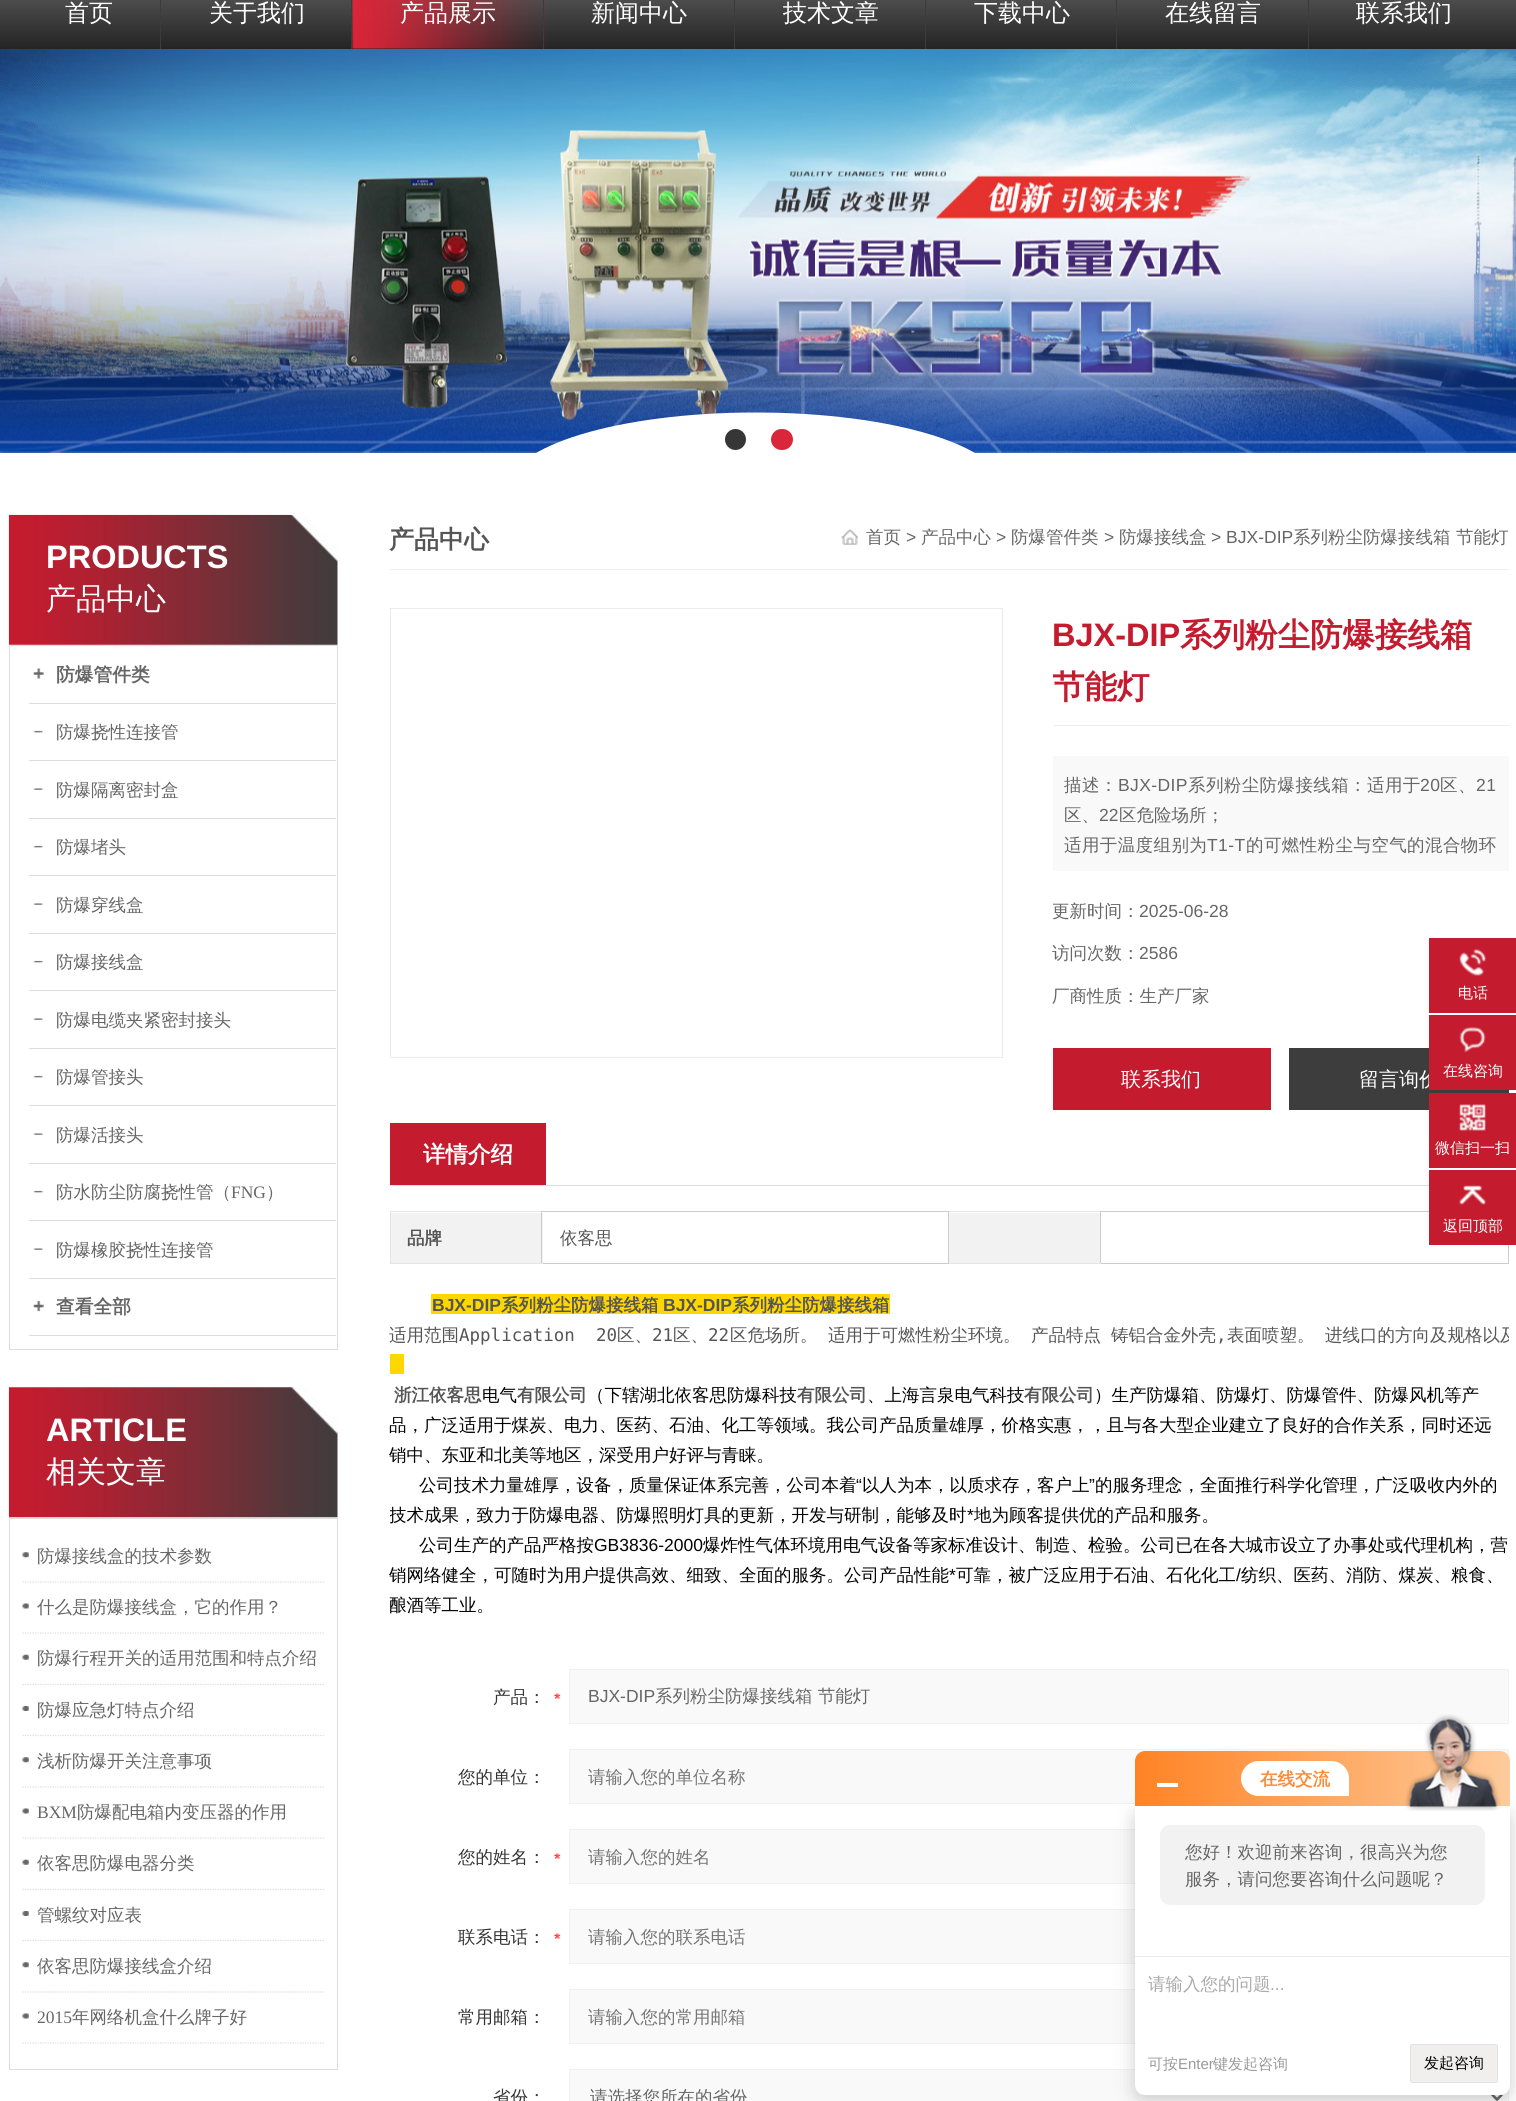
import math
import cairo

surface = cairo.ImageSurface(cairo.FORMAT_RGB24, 1516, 2101)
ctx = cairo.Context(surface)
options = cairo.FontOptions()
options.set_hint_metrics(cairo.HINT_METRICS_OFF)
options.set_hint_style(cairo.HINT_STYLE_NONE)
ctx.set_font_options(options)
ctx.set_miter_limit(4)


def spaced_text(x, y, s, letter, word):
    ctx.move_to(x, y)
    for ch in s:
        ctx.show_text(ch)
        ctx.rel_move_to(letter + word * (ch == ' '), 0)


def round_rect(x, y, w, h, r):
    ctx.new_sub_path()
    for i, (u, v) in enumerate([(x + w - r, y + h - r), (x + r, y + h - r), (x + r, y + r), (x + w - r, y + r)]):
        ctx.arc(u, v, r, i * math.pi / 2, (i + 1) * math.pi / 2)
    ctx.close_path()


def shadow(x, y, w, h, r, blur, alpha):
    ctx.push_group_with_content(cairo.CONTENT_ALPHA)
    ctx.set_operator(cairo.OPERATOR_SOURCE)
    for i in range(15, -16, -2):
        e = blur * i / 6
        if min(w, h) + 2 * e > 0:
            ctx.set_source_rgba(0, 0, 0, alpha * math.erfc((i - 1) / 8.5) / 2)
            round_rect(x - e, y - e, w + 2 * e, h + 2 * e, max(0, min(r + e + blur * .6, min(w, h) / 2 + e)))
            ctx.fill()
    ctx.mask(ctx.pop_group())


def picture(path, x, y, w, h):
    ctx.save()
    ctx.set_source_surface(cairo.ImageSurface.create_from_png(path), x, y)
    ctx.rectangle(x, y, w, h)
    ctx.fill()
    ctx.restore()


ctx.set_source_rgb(1, 1, 1)
ctx.paint()
gradient = cairo.LinearGradient(758, -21, 758, 49)
gradient.add_color_stop_rgba(0, 0.365, 0.365, 0.365, 1)
gradient.add_color_stop_rgba(1, 0.141, 0.141, 0.141, 1)
ctx.set_source(gradient)
ctx.rectangle(0, 0, 1516, 49)
ctx.fill()
ctx.select_font_face("WenQuanYi Zen Hei Medium")
ctx.set_font_size(24)
ctx.set_source_rgb(1, 1, 1)
ctx.move_to(65, 21)
ctx.show_text("首页")
ctx.set_source_rgb(0.235, 0.235, 0.235)
ctx.rectangle(160, 0, 1, 49)
ctx.fill()
ctx.set_source_rgb(1, 1, 1)
ctx.move_to(209, 21)
ctx.show_text("关于我们")
ctx.set_source_rgb(0.235, 0.235, 0.235)
ctx.rectangle(351, 0, 1, 49)
ctx.fill()
picture("img1.png", 352, 0, 196, 49)
ctx.set_source_rgb(1, 1, 1)
ctx.move_to(400, 21)
ctx.show_text("产品展示")
ctx.set_source_rgb(0.235, 0.235, 0.235)
ctx.rectangle(543, 0, 1, 49)
ctx.fill()
ctx.set_source_rgb(1, 1, 1)
ctx.move_to(591, 21)
ctx.show_text("新闻中心")
ctx.set_source_rgb(0.235, 0.235, 0.235)
ctx.rectangle(734, 0, 1, 49)
ctx.fill()
ctx.set_source_rgb(1, 1, 1)
ctx.move_to(783, 21)
ctx.show_text("技术文章")
ctx.set_source_rgb(0.235, 0.235, 0.235)
ctx.rectangle(925, 0, 1, 49)
ctx.fill()
ctx.set_source_rgb(1, 1, 1)
ctx.move_to(974, 21)
ctx.show_text("下载中心")
ctx.set_source_rgb(0.235, 0.235, 0.235)
ctx.rectangle(1116, 0, 1, 49)
ctx.fill()
ctx.set_source_rgb(1, 1, 1)
ctx.move_to(1165, 21)
ctx.show_text("在线留言")
ctx.set_source_rgb(0.235, 0.235, 0.235)
ctx.rectangle(1308, 0, 1, 49)
ctx.fill()
ctx.set_source_rgb(1, 1, 1)
ctx.move_to(1356, 21)
ctx.show_text("联系我们")
ctx.save()
ctx.rectangle(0, 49, 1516, 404)
ctx.clip()
ctx.set_source_rgb(0, 0, 0)
shadow(3, 443, 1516, 12, 0, 3, 0.3)
ctx.restore()
picture("img2.png", 0, 49, 1516, 404)
ctx.new_path()
ctx.move_to(755.5, 412.5)
ctx.curve_to(892, 412.5, 1002.5, 446, 1002.5, 487.5)
ctx.curve_to(1002.5, 529, 892, 562.5, 755.5, 562.5)
ctx.curve_to(619, 562.5, 508.5, 529, 508.5, 487.5)
ctx.curve_to(508.5, 446, 619, 412.5, 755.5, 412.5)
ctx.close_path()
ctx.fill()
ctx.set_source_rgb(0.212, 0.212, 0.212)
ctx.arc(735.5, 439.5, 10.5, 0, 2 * math.pi)
ctx.fill()
ctx.set_source_rgb(0.855, 0.149, 0.231)
round_rect(771, 429, 22, 21, 10.5)
ctx.fill()
picture("img3.png", 8, 514, 330, 131)
ctx.select_font_face("Liberation Sans", cairo.FONT_SLANT_NORMAL, cairo.FONT_WEIGHT_BOLD)
ctx.set_font_size(32.5)
ctx.set_source_rgb(1, 1, 1)
ctx.move_to(46, 568)
ctx.show_text("PRODUCTS")
ctx.select_font_face("WenQuanYi Zen Hei Medium")
ctx.set_font_size(30)
ctx.move_to(46, 609)
ctx.show_text("产品中心")
ctx.rectangle(9.5, 645.5, 328, 704)
ctx.set_source_rgb(0.867, 0.867, 0.867)
ctx.set_line_width(1)
ctx.stroke()
ctx.rectangle(29, 703, 307, 1)
ctx.fill()
picture("img4.png", 33, 668, 11, 11)
ctx.select_font_face("WenQuanYi Zen Hei", cairo.FONT_SLANT_NORMAL, cairo.FONT_WEIGHT_BOLD)
ctx.set_font_size(18.75)
ctx.set_source_rgb(0.4, 0.4, 0.4)
ctx.move_to(56, 681)
ctx.show_text("防爆管件类")
ctx.set_source_rgb(0.867, 0.867, 0.867)
ctx.rectangle(29, 760, 307, 1)
ctx.fill()
picture("img5.png", 33, 730, 10, 3)
ctx.select_font_face("WenQuanYi Zen Hei Medium")
ctx.set_font_size(17.5)
ctx.set_source_rgb(0.4, 0.4, 0.4)
ctx.move_to(56, 738)
ctx.show_text("防爆挠性连接管")
ctx.set_source_rgb(0.867, 0.867, 0.867)
ctx.rectangle(29, 818, 307, 1)
ctx.fill()
picture("img6.png", 33, 788, 10, 2)
ctx.set_source_rgb(0.4, 0.4, 0.4)
ctx.move_to(56, 796)
ctx.show_text("防爆隔离密封盒")
ctx.set_source_rgb(0.867, 0.867, 0.867)
ctx.rectangle(29, 875, 307, 1)
ctx.fill()
picture("img5.png", 33, 845, 10, 3)
ctx.set_source_rgb(0.4, 0.4, 0.4)
ctx.move_to(56, 853)
ctx.show_text("防爆堵头")
ctx.set_source_rgb(0.867, 0.867, 0.867)
ctx.rectangle(29, 933, 307, 1)
ctx.fill()
picture("img6.png", 33, 903, 10, 2)
ctx.set_source_rgb(0.4, 0.4, 0.4)
ctx.move_to(56, 911)
ctx.show_text("防爆穿线盒")
ctx.set_source_rgb(0.867, 0.867, 0.867)
ctx.rectangle(29, 990, 307, 1)
ctx.fill()
picture("img5.png", 33, 960, 10, 3)
ctx.set_source_rgb(0.4, 0.4, 0.4)
ctx.move_to(56, 968)
ctx.show_text("防爆接线盒")
ctx.set_source_rgb(0.867, 0.867, 0.867)
ctx.rectangle(29, 1048, 307, 1)
ctx.fill()
picture("img6.png", 33, 1018, 10, 2)
ctx.set_source_rgb(0.4, 0.4, 0.4)
ctx.move_to(56, 1026)
ctx.show_text("防爆电缆夹紧密封接头")
ctx.set_source_rgb(0.867, 0.867, 0.867)
ctx.rectangle(29, 1105, 307, 1)
ctx.fill()
picture("img5.png", 33, 1075, 10, 3)
ctx.set_source_rgb(0.4, 0.4, 0.4)
ctx.move_to(56, 1083)
ctx.show_text("防爆管接头")
ctx.set_source_rgb(0.867, 0.867, 0.867)
ctx.rectangle(29, 1163, 307, 1)
ctx.fill()
picture("img6.png", 33, 1133, 10, 2)
ctx.set_source_rgb(0.4, 0.4, 0.4)
ctx.move_to(56, 1141)
ctx.show_text("防爆活接头")
ctx.set_source_rgb(0.867, 0.867, 0.867)
ctx.rectangle(29, 1220, 307, 1)
ctx.fill()
picture("img5.png", 33, 1190, 10, 3)
ctx.set_source_rgb(0.4, 0.4, 0.4)
ctx.move_to(56, 1198)
ctx.show_text("防水防尘防腐挠性管（")
ctx.select_font_face("Liberation Serif")
ctx.move_to(231, 1198)
ctx.show_text("FNG")
ctx.select_font_face("WenQuanYi Zen Hei Medium")
ctx.move_to(266, 1198)
ctx.show_text("）")
ctx.set_source_rgb(0.867, 0.867, 0.867)
ctx.rectangle(29, 1278, 307, 1)
ctx.fill()
picture("img6.png", 33, 1248, 10, 2)
ctx.set_source_rgb(0.4, 0.4, 0.4)
ctx.move_to(56, 1256)
ctx.show_text("防爆橡胶挠性连接管")
ctx.set_source_rgb(0.867, 0.867, 0.867)
ctx.rectangle(29, 1335, 307, 1)
ctx.fill()
picture("img7.png", 33, 1300, 11, 12)
ctx.select_font_face("WenQuanYi Zen Hei", cairo.FONT_SLANT_NORMAL, cairo.FONT_WEIGHT_BOLD)
ctx.set_font_size(18.75)
ctx.set_source_rgb(0.4, 0.4, 0.4)
ctx.move_to(56, 1313)
ctx.show_text("查看全部")
picture("img8.png", 8, 1387, 330, 131)
ctx.select_font_face("Liberation Sans", cairo.FONT_SLANT_NORMAL, cairo.FONT_WEIGHT_BOLD)
ctx.set_font_size(32.5)
ctx.set_source_rgb(1, 1, 1)
ctx.move_to(46, 1441)
ctx.show_text("ARTICLE")
ctx.select_font_face("WenQuanYi Zen Hei Medium")
ctx.set_font_size(30)
ctx.move_to(46, 1482)
ctx.show_text("相关文章")
ctx.rectangle(9.5, 1518.5, 328, 551)
ctx.set_source_rgb(0.867, 0.867, 0.867)
ctx.stroke()
ctx.new_path()
ctx.move_to(22.5, 1582)
ctx.line_to(324, 1582)
ctx.set_line_width(1.2)
ctx.set_dash([1.25, 1.25])
ctx.stroke()
picture("img9.png", 22, 1552, 7, 6)
ctx.set_font_size(17.5)
ctx.set_source_rgb(0.4, 0.4, 0.4)
ctx.move_to(37, 1562)
ctx.show_text("防爆接线盒的技术参数")
ctx.new_path()
ctx.move_to(22.5, 1633)
ctx.line_to(324, 1633)
ctx.set_source_rgb(0.867, 0.867, 0.867)
ctx.stroke()
picture("img10.png", 22, 1603, 7, 6)
ctx.set_source_rgb(0.4, 0.4, 0.4)
ctx.move_to(37, 1613)
ctx.show_text("什么是防爆接线盒，它的作用？")
ctx.new_path()
ctx.move_to(22.5, 1684.5)
ctx.line_to(324, 1684.5)
ctx.set_source_rgb(0.867, 0.867, 0.867)
ctx.stroke()
picture("img11.png", 22, 1654, 7, 6)
ctx.set_source_rgb(0.4, 0.4, 0.4)
ctx.move_to(37, 1664)
ctx.show_text("防爆行程开关的适用范围和特点介绍")
ctx.new_path()
ctx.move_to(22.5, 1735.5)
ctx.line_to(324, 1735.5)
ctx.set_source_rgb(0.867, 0.867, 0.867)
ctx.stroke()
picture("img12.png", 22, 1706, 7, 5)
ctx.set_source_rgb(0.4, 0.4, 0.4)
ctx.move_to(37, 1716)
ctx.show_text("防爆应急灯特点介绍")
ctx.new_path()
ctx.move_to(22.5, 1787)
ctx.line_to(324, 1787)
ctx.set_source_rgb(0.867, 0.867, 0.867)
ctx.stroke()
picture("img9.png", 22, 1757, 7, 6)
ctx.set_source_rgb(0.4, 0.4, 0.4)
ctx.move_to(37, 1767)
ctx.show_text("浅析防爆开关注意事项")
ctx.new_path()
ctx.move_to(22.5, 1838)
ctx.line_to(324, 1838)
ctx.set_source_rgb(0.867, 0.867, 0.867)
ctx.stroke()
picture("img10.png", 22, 1808, 7, 6)
ctx.select_font_face("Liberation Serif")
ctx.set_source_rgb(0.4, 0.4, 0.4)
ctx.move_to(37, 1818)
ctx.show_text("BXM")
ctx.select_font_face("WenQuanYi Zen Hei Medium")
ctx.move_to(77, 1818)
ctx.show_text("防爆配电箱内变压器的作用")
ctx.new_path()
ctx.move_to(22.5, 1889.5)
ctx.line_to(324, 1889.5)
ctx.set_source_rgb(0.867, 0.867, 0.867)
ctx.stroke()
picture("img11.png", 22, 1859, 7, 6)
ctx.set_source_rgb(0.4, 0.4, 0.4)
ctx.move_to(37, 1869)
ctx.show_text("依客思防爆电器分类")
ctx.new_path()
ctx.move_to(22.5, 1940.5)
ctx.line_to(324, 1940.5)
ctx.set_source_rgb(0.867, 0.867, 0.867)
ctx.stroke()
picture("img12.png", 22, 1911, 7, 5)
ctx.set_source_rgb(0.4, 0.4, 0.4)
ctx.move_to(37, 1921)
ctx.show_text("管螺纹对应表")
ctx.new_path()
ctx.move_to(22.5, 1992)
ctx.line_to(324, 1992)
ctx.set_source_rgb(0.867, 0.867, 0.867)
ctx.stroke()
picture("img9.png", 22, 1962, 7, 6)
ctx.set_source_rgb(0.4, 0.4, 0.4)
ctx.move_to(37, 1972)
ctx.show_text("依客思防爆接线盒介绍")
ctx.new_path()
ctx.move_to(22.5, 2043)
ctx.line_to(324, 2043)
ctx.set_source_rgb(0.867, 0.867, 0.867)
ctx.stroke()
picture("img10.png", 22, 2013, 7, 6)
ctx.select_font_face("Liberation Serif")
ctx.set_source_rgb(0.4, 0.4, 0.4)
ctx.move_to(37, 2023)
ctx.show_text("2015")
ctx.select_font_face("WenQuanYi Zen Hei Medium")
ctx.move_to(72, 2023)
ctx.show_text("年网络机盒什么牌子好")
ctx.set_source_rgb(0.937, 0.937, 0.937)
ctx.rectangle(390, 569, 1119, 1)
ctx.fill()
ctx.select_font_face("WenQuanYi Zen Hei", cairo.FONT_SLANT_NORMAL, cairo.FONT_WEIGHT_BOLD)
ctx.set_font_size(25)
ctx.set_source_rgb(0.333, 0.333, 0.333)
ctx.move_to(389, 548)
ctx.show_text("产品中心")
picture("img13.png", 841, 529, 17, 16)
ctx.select_font_face("WenQuanYi Zen Hei Medium")
ctx.set_font_size(17.5)
ctx.set_source_rgb(0.4, 0.4, 0.4)
ctx.move_to(866, 543)
ctx.show_text("首页")
ctx.select_font_face("Liberation Sans")
ctx.move_to(906, 543)
ctx.show_text(">")
ctx.select_font_face("WenQuanYi Zen Hei Medium")
ctx.move_to(921, 543)
ctx.show_text("产品中心")
ctx.select_font_face("Liberation Sans")
ctx.move_to(996, 543)
ctx.show_text(">")
ctx.select_font_face("WenQuanYi Zen Hei Medium")
ctx.move_to(1011, 543)
ctx.show_text("防爆管件类")
ctx.select_font_face("Liberation Sans")
ctx.move_to(1104, 543)
ctx.show_text(">")
ctx.select_font_face("WenQuanYi Zen Hei Medium")
ctx.move_to(1119, 543)
ctx.show_text("防爆接线盒")
ctx.select_font_face("Liberation Sans")
ctx.move_to(1211, 543)
ctx.show_text("> BJX-DIP")
ctx.select_font_face("WenQuanYi Zen Hei Medium")
ctx.move_to(1293, 543)
ctx.show_text("系列粉尘防爆接线箱")
ctx.move_to(1456, 543)
ctx.show_text("节能灯")
ctx.rectangle(390.5, 608.5, 612, 449)
ctx.set_source_rgb(0.918, 0.918, 0.918)
ctx.set_line_width(1)
ctx.set_dash([])
ctx.stroke()
ctx.set_source_rgb(0.937, 0.937, 0.937)
ctx.rectangle(1053, 725, 456, 1)
ctx.fill()
ctx.select_font_face("Liberation Sans", cairo.FONT_SLANT_NORMAL, cairo.FONT_WEIGHT_BOLD)
ctx.set_font_size(32.5)
ctx.set_source_rgb(0.769, 0.106, 0.18)
ctx.move_to(1052, 646)
ctx.show_text("BJX-DIP")
ctx.select_font_face("WenQuanYi Zen Hei", cairo.FONT_SLANT_NORMAL, cairo.FONT_WEIGHT_BOLD)
ctx.move_to(1180, 646)
ctx.show_text("系列粉尘防爆接线箱")
ctx.save()
ctx.rectangle(1053, 608, 456, 502)
ctx.clip()
ctx.move_to(1052, 698)
ctx.show_text("节能灯")
ctx.restore()
ctx.set_source_rgb(0.973, 0.973, 0.973)
ctx.rectangle(1053, 756, 456, 115)
ctx.fill()
ctx.select_font_face("WenQuanYi Zen Hei Medium")
ctx.set_font_size(17.5)
ctx.set_source_rgb(0.4, 0.4, 0.4)
spaced_text(1064, 791, "描述：", 0.4, 0)
ctx.select_font_face("Liberation Sans")
spaced_text(1118, 791, "BJX-DIP", 0.4, 0)
ctx.select_font_face("WenQuanYi Zen Hei Medium")
spaced_text(1188, 791, "系列粉尘防爆接线箱：适用于", 0.4, 0)
ctx.select_font_face("Liberation Sans")
spaced_text(1420, 791, "20", 0.4, 0)
ctx.select_font_face("WenQuanYi Zen Hei Medium")
spaced_text(1440, 791, "区、", 0.4, 0)
ctx.select_font_face("Liberation Sans")
spaced_text(1476, 791, "21", 0.4, 0)
ctx.select_font_face("WenQuanYi Zen Hei Medium")
ctx.move_to(1064, 821)
ctx.show_text("区、")
ctx.select_font_face("Liberation Sans")
ctx.move_to(1099, 821)
ctx.show_text("22")
ctx.select_font_face("WenQuanYi Zen Hei Medium")
ctx.move_to(1119, 821)
ctx.show_text("区危险场所；")
spaced_text(1064, 851, "适用于温度组别为", 0.4, 0)
ctx.select_font_face("Liberation Sans")
spaced_text(1207, 851, "T1-T", 0.4, 0)
ctx.select_font_face("WenQuanYi Zen Hei Medium")
spaced_text(1246, 851, "的可燃性粉尘与空气的混合物环", 0.4, 0)
ctx.save()
ctx.rectangle(1053, 608, 456, 502)
ctx.clip()
ctx.move_to(1052, 917)
ctx.show_text("更新时间：")
ctx.restore()
ctx.select_font_face("Liberation Sans")
ctx.move_to(1139, 917)
ctx.show_text("2025-06-28")
ctx.select_font_face("WenQuanYi Zen Hei Medium")
ctx.move_to(1052, 959)
ctx.show_text("访问次数：")
ctx.select_font_face("Liberation Sans")
ctx.move_to(1139, 959)
ctx.show_text("2586")
ctx.select_font_face("WenQuanYi Zen Hei Medium")
ctx.move_to(1052, 1002)
ctx.show_text("厂商性质：生产厂家")
ctx.set_source_rgb(0.769, 0.106, 0.18)
ctx.rectangle(1053, 1048, 218, 62)
ctx.fill()
ctx.set_font_size(20)
ctx.set_source_rgb(1, 1, 1)
ctx.move_to(1121, 1086)
ctx.show_text("联系我们")
ctx.set_source_rgb(0.239, 0.239, 0.239)
ctx.rectangle(1289, 1048, 220, 62)
ctx.fill()
ctx.set_source_rgb(1, 1, 1)
ctx.move_to(1359, 1086)
ctx.show_text("留言询价")
ctx.set_source_rgb(0.871, 0.871, 0.871)
ctx.rectangle(390, 1185, 1039, 1)
ctx.fill()
ctx.set_source_rgb(0.769, 0.106, 0.18)
ctx.rectangle(390, 1123, 156, 62)
ctx.fill()
ctx.select_font_face("WenQuanYi Zen Hei", cairo.FONT_SLANT_NORMAL, cairo.FONT_WEIGHT_BOLD)
ctx.set_font_size(22.5)
ctx.set_source_rgb(1, 1, 1)
ctx.move_to(423, 1162)
ctx.show_text("详情介绍")
ctx.set_source_rgb(0.902, 0.898, 0.898)
ctx.rectangle(390, 1211, 710, 1)
ctx.fill()
ctx.rectangle(390, 1211, 1, 53)
ctx.fill()
ctx.set_source_rgb(0.949, 0.949, 0.949)
ctx.rectangle(391, 1213, 152, 50)
ctx.fill()
ctx.set_source_rgb(0.8, 0.8, 0.8)
ctx.rectangle(541, 1211, 408, 1)
ctx.fill()
ctx.rectangle(1508, 1245, 1, 19)
ctx.fill()
ctx.rectangle(1100, 1263, 409, 1)
ctx.fill()
ctx.rectangle(1100, 1211, 329, 1)
ctx.fill()
ctx.rectangle(1100, 1211, 1, 53)
ctx.fill()
ctx.set_source_rgb(0.902, 0.898, 0.898)
ctx.rectangle(948, 1263, 153, 1)
ctx.fill()
ctx.set_source_rgb(0.8, 0.8, 0.8)
ctx.rectangle(948, 1211, 1, 53)
ctx.fill()
ctx.rectangle(541, 1263, 408, 1)
ctx.fill()
ctx.rectangle(541, 1211, 1, 53)
ctx.fill()
ctx.set_source_rgb(0.902, 0.898, 0.898)
ctx.rectangle(390, 1263, 153, 1)
ctx.fill()
ctx.set_font_size(17.5)
ctx.set_source_rgb(0.333, 0.333, 0.333)
ctx.move_to(407, 1244)
ctx.show_text("品牌")
ctx.select_font_face("WenQuanYi Zen Hei Medium")
ctx.move_to(560, 1244)
ctx.show_text("依客思")
ctx.set_source_rgb(0.949, 0.949, 0.949)
ctx.rectangle(949, 1213, 151, 50)
ctx.fill()
ctx.set_source_rgb(1, 0.843, 0)
ctx.rectangle(431, 1294, 459, 20)
ctx.fill()
ctx.select_font_face("Liberation Sans", cairo.FONT_SLANT_NORMAL, cairo.FONT_WEIGHT_BOLD)
ctx.set_source_rgb(0.333, 0.333, 0.333)
ctx.move_to(432, 1311)
ctx.show_text("BJX-DIP")
ctx.select_font_face("WenQuanYi Zen Hei", cairo.FONT_SLANT_NORMAL, cairo.FONT_WEIGHT_BOLD)
ctx.move_to(501, 1311)
ctx.show_text("系列粉尘防爆接线箱")
ctx.select_font_face("Liberation Sans", cairo.FONT_SLANT_NORMAL, cairo.FONT_WEIGHT_BOLD)
ctx.move_to(663, 1311)
ctx.show_text("BJX-DIP")
ctx.select_font_face("WenQuanYi Zen Hei", cairo.FONT_SLANT_NORMAL, cairo.FONT_WEIGHT_BOLD)
ctx.move_to(732, 1311)
ctx.show_text("系列粉尘防爆接线箱")
ctx.select_font_face("WenQuanYi Zen Hei Medium")
ctx.move_to(389, 1341)
ctx.show_text("适用范围")
ctx.select_font_face("DejaVu Sans Mono")
ctx.move_to(459, 1341)
ctx.show_text("Application  20")
ctx.select_font_face("WenQuanYi Zen Hei Medium")
ctx.move_to(617, 1341)
ctx.show_text("区、")
ctx.select_font_face("DejaVu Sans Mono")
ctx.move_to(652, 1341)
ctx.show_text("21")
ctx.select_font_face("WenQuanYi Zen Hei Medium")
ctx.move_to(673, 1341)
ctx.show_text("区、")
ctx.select_font_face("DejaVu Sans Mono")
ctx.move_to(708, 1341)
ctx.show_text("22")
ctx.select_font_face("WenQuanYi Zen Hei Medium")
ctx.move_to(730, 1341)
ctx.show_text("区危场所。")
ctx.move_to(828, 1341)
ctx.show_text("适用于可燃性粉尘环境。")
ctx.move_to(1031, 1341)
ctx.show_text("产品特点")
ctx.move_to(1111, 1341)
ctx.show_text("铸铝合金外壳")
ctx.select_font_face("DejaVu Sans Mono")
ctx.move_to(1216, 1341)
ctx.show_text(",")
ctx.select_font_face("WenQuanYi Zen Hei Medium")
ctx.move_to(1227, 1341)
ctx.show_text("表面喷塑。")
ctx.save()
ctx.rectangle(390, 1123, 1119, 521)
ctx.clip()
ctx.move_to(1325, 1341)
ctx.show_text("进线口的方向及规格以及")
ctx.restore()
ctx.set_source_rgb(1, 0.843, 0)
ctx.rectangle(390, 1354, 14, 20)
ctx.fill()
ctx.select_font_face("WenQuanYi Zen Hei", cairo.FONT_SLANT_NORMAL, cairo.FONT_WEIGHT_BOLD)
ctx.set_source_rgb(0.333, 0.333, 0.333)
ctx.move_to(394, 1401)
ctx.show_text("浙江依客思")
ctx.select_font_face("WenQuanYi Zen Hei Medium")
ctx.set_source_rgb(0, 0, 0)
ctx.move_to(482, 1401)
ctx.show_text("电气")
ctx.select_font_face("WenQuanYi Zen Hei", cairo.FONT_SLANT_NORMAL, cairo.FONT_WEIGHT_BOLD)
ctx.set_source_rgb(0.333, 0.333, 0.333)
ctx.move_to(517, 1401)
ctx.show_text("有限公司")
ctx.select_font_face("WenQuanYi Zen Hei Medium")
ctx.set_source_rgb(0, 0, 0)
ctx.move_to(587, 1401)
ctx.show_text("（下辖湖北依客思防爆科技")
ctx.select_font_face("WenQuanYi Zen Hei", cairo.FONT_SLANT_NORMAL, cairo.FONT_WEIGHT_BOLD)
ctx.set_source_rgb(0.333, 0.333, 0.333)
ctx.move_to(797, 1401)
ctx.show_text("有限公司")
ctx.select_font_face("WenQuanYi Zen Hei Medium")
ctx.set_source_rgb(0, 0, 0)
ctx.move_to(867, 1401)
ctx.show_text("、上海言泉电气科技")
ctx.select_font_face("WenQuanYi Zen Hei", cairo.FONT_SLANT_NORMAL, cairo.FONT_WEIGHT_BOLD)
ctx.set_source_rgb(0.333, 0.333, 0.333)
ctx.move_to(1024, 1401)
ctx.show_text("有限公司")
ctx.select_font_face("WenQuanYi Zen Hei Medium")
ctx.set_source_rgb(0, 0, 0)
ctx.move_to(1094, 1401)
ctx.show_text("）生产防爆箱、防爆灯、防爆管件、防爆风机等产")
ctx.move_to(389, 1431)
ctx.show_text("品，广泛适用于煤炭、电力、医药、石油、化工等领域。我公司产品质量雄厚，价格实惠，，且与各大型企业建立了良好的合作关系，同时还远")
ctx.move_to(389, 1461)
ctx.show_text("销中、东亚和北美等地区，深受用户好评与青睐。")
ctx.move_to(419, 1491)
ctx.show_text("公司技术力量雄厚，设备，质量保证体系完善，公司本着")
ctx.select_font_face("Liberation Sans")
ctx.move_to(856, 1491)
ctx.show_text("“")
ctx.select_font_face("WenQuanYi Zen Hei Medium")
ctx.move_to(862, 1491)
ctx.show_text("以人为本，以质求存，客户上")
ctx.select_font_face("Liberation Sans")
ctx.move_to(1089, 1491)
ctx.show_text("”")
ctx.select_font_face("WenQuanYi Zen Hei Medium")
ctx.move_to(1095, 1491)
ctx.show_text("的服务理念，全面推行科学化管理，广泛吸收内外的")
ctx.save()
ctx.rectangle(390, 1123, 1119, 521)
ctx.clip()
ctx.move_to(389, 1521)
ctx.show_text("技术成果，致力于防爆电器、防爆照明灯具的更新，开发与研制，能够及时")
ctx.restore()
ctx.select_font_face("Liberation Sans")
ctx.move_to(967, 1521)
ctx.show_text("*")
ctx.select_font_face("WenQuanYi Zen Hei Medium")
ctx.move_to(974, 1521)
ctx.show_text("地为顾客提供优的产品和服务。")
ctx.move_to(419, 1551)
ctx.show_text("公司生产的产品严格按")
ctx.select_font_face("Liberation Sans")
ctx.move_to(594, 1551)
ctx.show_text("GB3836-2000")
ctx.select_font_face("WenQuanYi Zen Hei Medium")
ctx.move_to(703, 1551)
ctx.show_text("爆炸性气体环境用电气设备等家标准设计、制造、检验。公司已在各大城市设立了办事处或代理机构，营")
ctx.move_to(389, 1581)
ctx.show_text("销网络健全，可随时为用户提供高效、细致、全面的服务。公司产品性能")
ctx.select_font_face("Liberation Sans")
ctx.move_to(949, 1581)
ctx.show_text("*")
ctx.select_font_face("WenQuanYi Zen Hei Medium")
ctx.move_to(956, 1581)
ctx.show_text("可靠，被广泛应用于石油、石化化工")
ctx.select_font_face("Liberation Sans")
ctx.move_to(1236, 1581)
ctx.show_text("/")
ctx.select_font_face("WenQuanYi Zen Hei Medium")
ctx.move_to(1241, 1581)
ctx.show_text("纺织、医药、消防、煤炭、粮食、")
ctx.move_to(389, 1611)
ctx.show_text("酿酒等工业。")
picture("img14.png", 553, 1693, 8, 6)
ctx.set_source_rgb(0.2, 0.2, 0.2)
ctx.move_to(493, 1703)
ctx.show_text("产品：")
ctx.set_source_rgb(0.973, 0.973, 0.973)
ctx.rectangle(569.5, 1669.5, 939, 54)
ctx.fill_preserve()
ctx.set_source_rgb(0.945, 0.945, 0.945)
ctx.stroke()
ctx.select_font_face("Liberation Sans")
ctx.set_source_rgb(0.4, 0.4, 0.4)
ctx.move_to(588, 1702)
ctx.show_text("BJX-DIP")
ctx.select_font_face("WenQuanYi Zen Hei Medium")
ctx.move_to(655, 1702)
ctx.show_text("系列粉尘防爆接线箱 节能灯")
ctx.set_source_rgb(0.2, 0.2, 0.2)
ctx.move_to(458, 1783)
ctx.show_text("您的单位：")
ctx.set_source_rgb(0.973, 0.973, 0.973)
ctx.rectangle(569.5, 1749.5, 939, 54)
ctx.fill_preserve()
ctx.set_source_rgb(0.945, 0.945, 0.945)
ctx.stroke()
ctx.set_source_rgb(0.459, 0.459, 0.459)
ctx.move_to(588, 1783)
ctx.show_text("请输入您的单位名称")
picture("img14.png", 553, 1853, 8, 6)
ctx.set_source_rgb(0.2, 0.2, 0.2)
ctx.move_to(458, 1863)
ctx.show_text("您的姓名：")
ctx.set_source_rgb(0.973, 0.973, 0.973)
ctx.rectangle(570, 1830, 565, 53)
ctx.fill()
ctx.rectangle(569.5, 1829.5, 939, 54)
ctx.set_source_rgb(0.945, 0.945, 0.945)
ctx.stroke()
ctx.set_source_rgb(0.459, 0.459, 0.459)
ctx.move_to(588, 1863)
ctx.show_text("请输入您的姓名")
picture("img14.png", 553, 1933, 8, 6)
ctx.set_source_rgb(0.2, 0.2, 0.2)
ctx.move_to(458, 1943)
ctx.show_text("联系电话：")
ctx.set_source_rgb(0.973, 0.973, 0.973)
ctx.rectangle(570, 1910, 565, 53)
ctx.fill()
ctx.rectangle(569.5, 1909.5, 939, 54)
ctx.set_source_rgb(0.945, 0.945, 0.945)
ctx.stroke()
ctx.set_source_rgb(0.459, 0.459, 0.459)
ctx.move_to(588, 1943)
ctx.show_text("请输入您的联系电话")
ctx.set_source_rgb(0.2, 0.2, 0.2)
ctx.move_to(458, 2023)
ctx.show_text("常用邮箱：")
ctx.set_source_rgb(0.973, 0.973, 0.973)
ctx.rectangle(570, 1990, 565, 53)
ctx.fill()
ctx.rectangle(569.5, 1989.5, 939, 54)
ctx.set_source_rgb(0.945, 0.945, 0.945)
ctx.stroke()
ctx.set_source_rgb(0.459, 0.459, 0.459)
ctx.move_to(588, 2023)
ctx.show_text("请输入您的常用邮箱")
ctx.set_source_rgb(0.2, 0.2, 0.2)
ctx.move_to(493, 2103)
ctx.show_text("省份：")
ctx.set_source_rgb(0.973, 0.973, 0.973)
ctx.rectangle(569.5, 2069.5, 939, 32)
ctx.fill_preserve()
ctx.set_source_rgb(0.945, 0.945, 0.945)
ctx.stroke()
ctx.new_path()
ctx.move_to(1492, 2094.5)
ctx.line_to(1497, 2099.5)
ctx.line_to(1502, 2094.5)
ctx.set_source_rgb(0.4, 0.4, 0.4)
ctx.set_line_width(2.5)
ctx.stroke()
ctx.move_to(590, 2103)
ctx.show_text("请选择您所在的省份")
ctx.set_source_rgb(0.769, 0.106, 0.18)
ctx.rectangle(1429, 938, 87, 75)
ctx.fill()
picture("img15.png", 1459, 949, 27, 27)
ctx.set_font_size(15)
ctx.set_source_rgb(1, 1, 1)
ctx.move_to(1458, 998)
ctx.show_text("电话")
ctx.set_source_rgb(0.769, 0.106, 0.18)
ctx.rectangle(1429, 1015, 87, 75)
ctx.fill()
picture("img16.png", 1459, 1027, 27, 26)
ctx.set_source_rgb(1, 1, 1)
ctx.move_to(1443, 1076)
ctx.show_text("在线咨询")
ctx.set_source_rgb(0.769, 0.106, 0.18)
ctx.rectangle(1429, 1093, 87, 75)
ctx.fill()
picture("img17.png", 1459, 1104, 27, 27)
ctx.set_source_rgb(1, 1, 1)
ctx.move_to(1435, 1153)
ctx.show_text("微信扫一扫")
ctx.set_source_rgb(0.769, 0.106, 0.18)
ctx.rectangle(1429, 1170, 87, 75)
ctx.fill()
picture("img18.png", 1459, 1185, 27, 20)
ctx.set_source_rgb(1, 1, 1)
ctx.move_to(1443, 1231)
ctx.show_text("返回顶部")
ctx.set_source_rgb(0, 0, 0)
shadow(1135, 1811, 375, 289, 10, 10, 0.2)
gradient = cairo.LinearGradient(1135, 1779, 1510, 1779)
gradient.add_color_stop_rgba(0, 1, 0.514, 0.141, 1)
gradient.add_color_stop_rgba(1, 0.996, 0.796, 0.612, 1)
ctx.set_source(gradient)
ctx.new_path()
ctx.move_to(1145, 1751)
ctx.line_to(1500, 1751)
ctx.curve_to(1505.5, 1751, 1510, 1755.5, 1510, 1761)
ctx.line_to(1510, 1806)
ctx.line_to(1135, 1806)
ctx.line_to(1135, 1761)
ctx.curve_to(1135, 1755.5, 1139.5, 1751, 1145, 1751)
ctx.close_path()
ctx.fill()
ctx.set_source_rgb(1, 1, 1)
ctx.rectangle(1157, 1783, 21, 4)
ctx.fill()
ctx.new_path()
ctx.move_to(1258.5, 1761)
ctx.line_to(1331.5, 1761)
ctx.curve_to(1341, 1761, 1349, 1769, 1349, 1778.5)
ctx.line_to(1349, 1796)
ctx.line_to(1258.5, 1796)
ctx.curve_to(1249, 1796, 1241, 1788, 1241, 1778.5)
ctx.curve_to(1241, 1769, 1249, 1761, 1258.5, 1761)
ctx.close_path()
ctx.fill()
ctx.select_font_face("WenQuanYi Zen Hei", cairo.FONT_SLANT_NORMAL, cairo.FONT_WEIGHT_BOLD)
ctx.set_font_size(17.5)
ctx.set_source_rgb(0.984, 0.545, 0.212)
ctx.move_to(1260, 1785)
ctx.show_text("在线交流")
ctx.set_source_rgb(1, 1, 1)
ctx.new_path()
ctx.move_to(1135, 1806)
ctx.line_to(1510, 1806)
ctx.line_to(1510, 2085)
ctx.curve_to(1510, 2090.5, 1505.5, 2095, 1500, 2095)
ctx.line_to(1145, 2095)
ctx.curve_to(1139.5, 2095, 1135, 2090.5, 1135, 2085)
ctx.close_path()
ctx.fill()
picture("img19.png", 1405, 1714, 96, 97)
ctx.set_source_rgb(0.949, 0.949, 0.949)
round_rect(1160, 1825, 325, 80, 10)
ctx.fill()
ctx.select_font_face("WenQuanYi Zen Hei Medium")
ctx.set_source_rgb(0.4, 0.4, 0.4)
ctx.move_to(1185, 1858)
ctx.show_text("您好！欢迎前来咨询，很高兴为您")
ctx.move_to(1185, 1885)
ctx.show_text("服务，请问您要咨询什么问题呢？")
ctx.set_source_rgb(0.918, 0.918, 0.918)
ctx.rectangle(1135, 1956, 375, 1)
ctx.fill()
ctx.set_source_rgb(0.667, 0.667, 0.667)
ctx.move_to(1148, 1990)
ctx.show_text("请输入您的问题")
ctx.select_font_face("Liberation Sans")
ctx.move_to(1270, 1990)
ctx.show_text("...")
ctx.select_font_face("WenQuanYi Zen Hei Medium")
ctx.set_font_size(15)
ctx.set_source_rgb(0.6, 0.6, 0.6)
ctx.move_to(1148, 2069)
ctx.show_text("可按")
ctx.select_font_face("Liberation Sans")
ctx.move_to(1178, 2069)
ctx.show_text("Enter")
ctx.select_font_face("WenQuanYi Zen Hei Medium")
ctx.move_to(1213, 2069)
ctx.show_text("键发起咨询")
ctx.set_source_rgb(0.941, 0.937, 0.929)
round_rect(1410.5, 2044.5, 87, 38, 2)
ctx.fill_preserve()
ctx.set_source_rgb(0.886, 0.886, 0.886)
ctx.set_line_width(1)
ctx.stroke()
ctx.set_source_rgb(0, 0, 0)
ctx.move_to(1424, 2068)
ctx.show_text("发起咨询")
surface.write_to_png("page.png")
